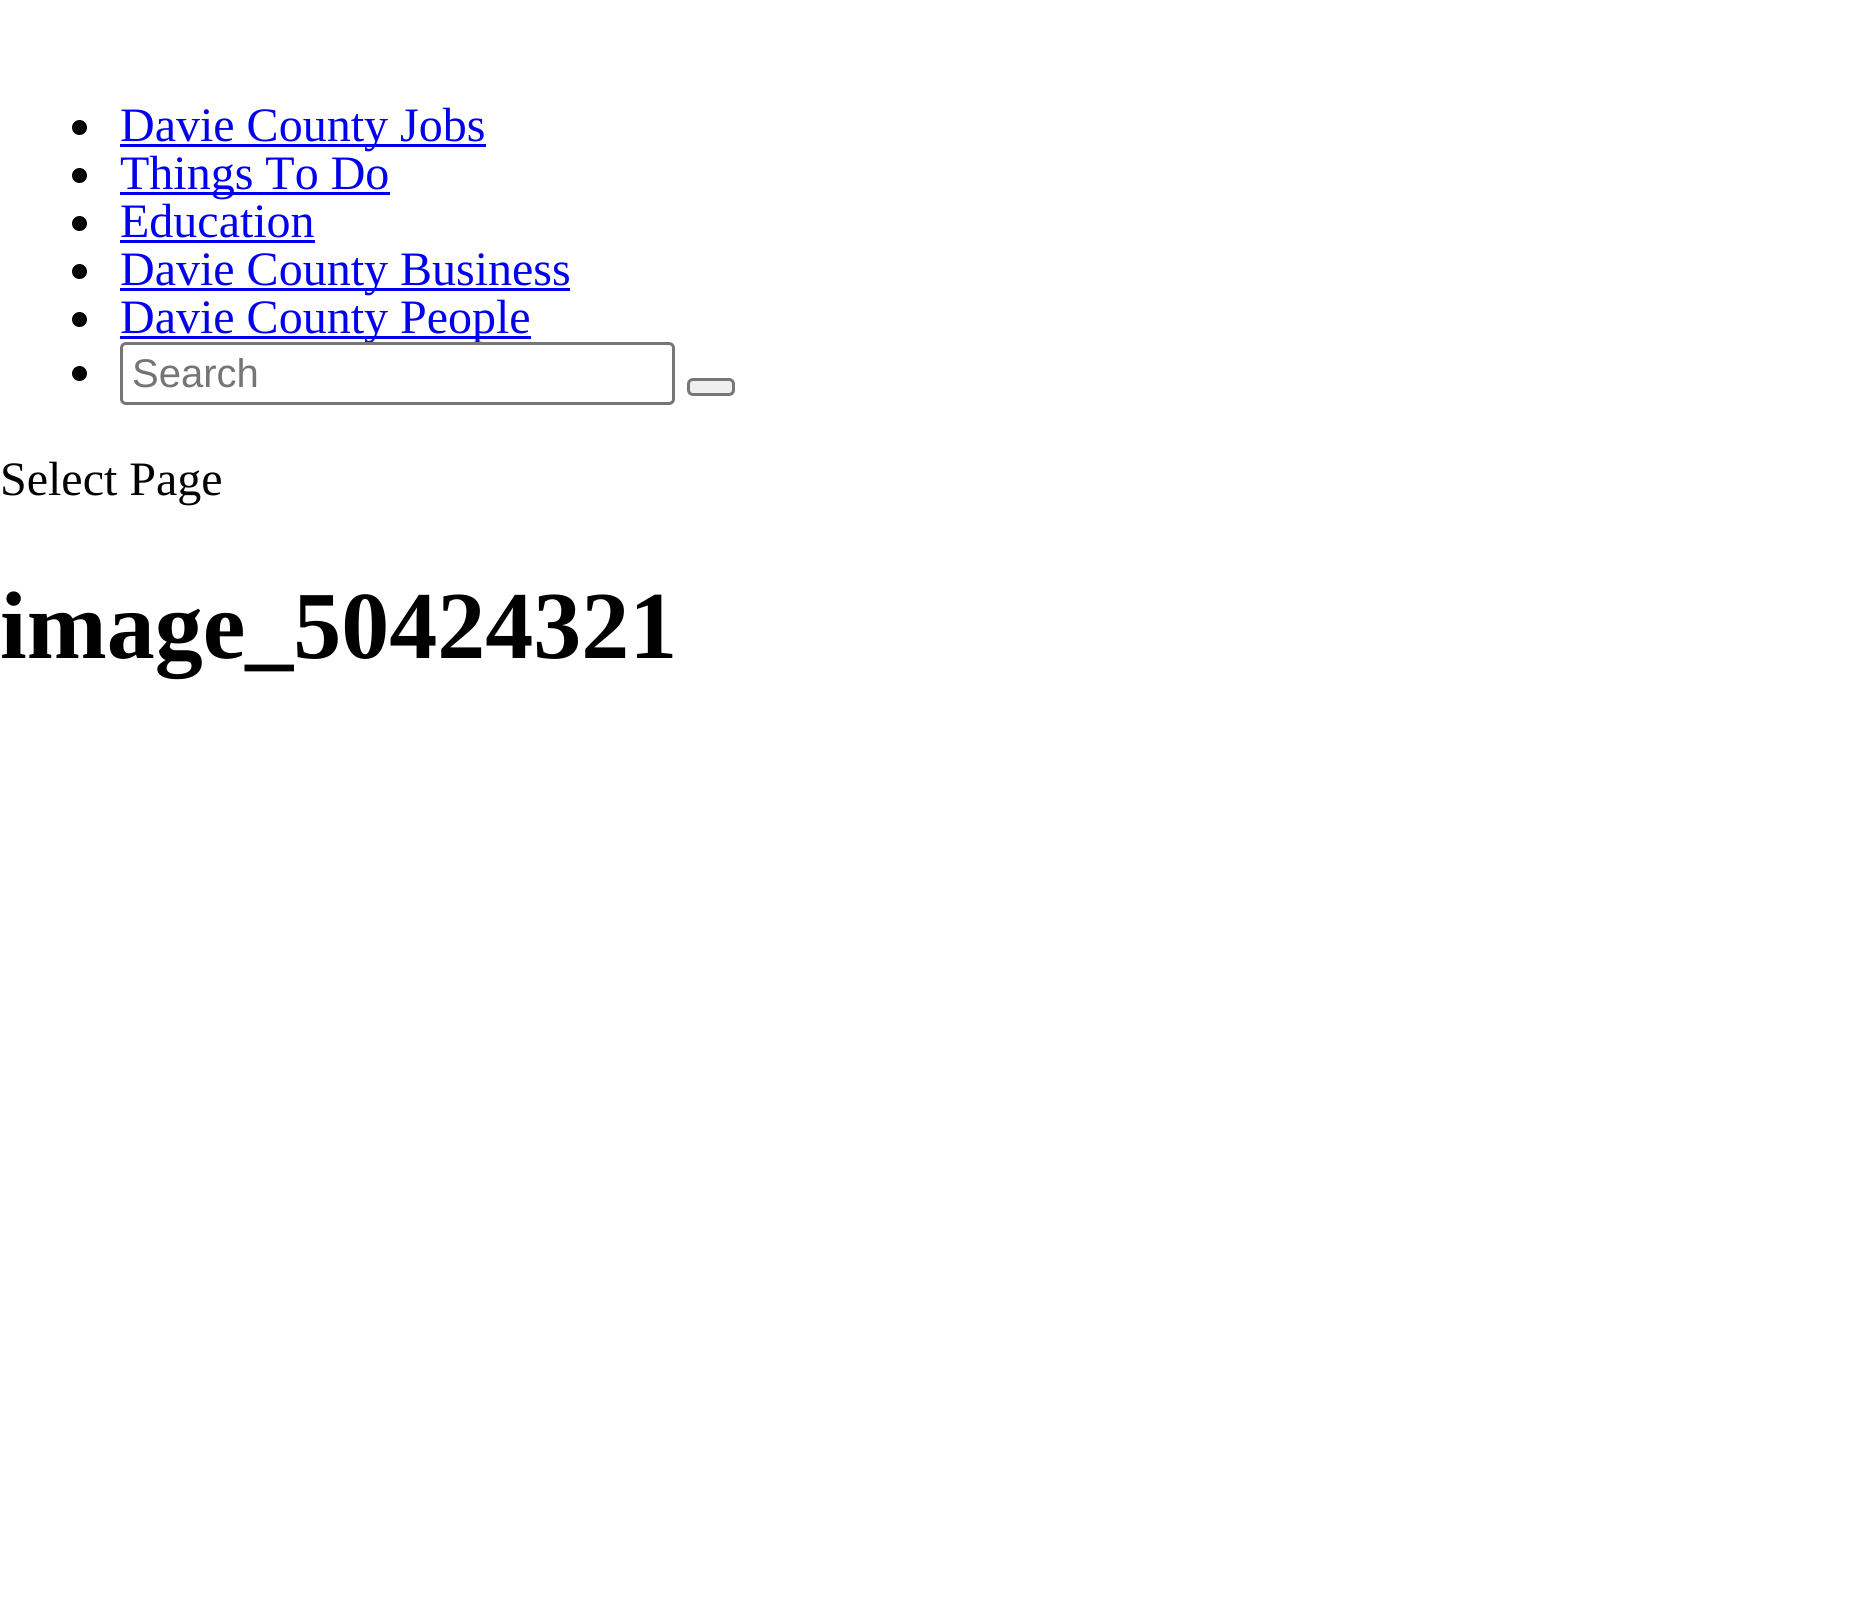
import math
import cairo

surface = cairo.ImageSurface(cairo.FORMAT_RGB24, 1860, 1597)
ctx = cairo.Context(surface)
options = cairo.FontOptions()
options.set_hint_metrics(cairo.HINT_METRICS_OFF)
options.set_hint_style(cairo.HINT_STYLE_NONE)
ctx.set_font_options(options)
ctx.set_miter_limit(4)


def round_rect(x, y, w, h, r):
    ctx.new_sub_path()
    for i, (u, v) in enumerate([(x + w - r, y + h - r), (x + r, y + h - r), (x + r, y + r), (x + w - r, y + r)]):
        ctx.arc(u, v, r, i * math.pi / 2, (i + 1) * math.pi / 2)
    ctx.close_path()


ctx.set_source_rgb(1, 1, 1)
ctx.paint()
ctx.set_source_rgb(0, 0, 0)
ctx.arc(79.5, 127.5, 7.5, 0, 2 * math.pi)
ctx.fill()
ctx.set_source_rgb(0, 0, 0.933)
ctx.rectangle(120, 144, 366, 3)
ctx.fill()
ctx.select_font_face("Liberation Serif")
ctx.set_font_size(48)
ctx.move_to(120, 141)
ctx.show_text("Davie County Jobs")
ctx.set_source_rgb(0, 0, 0)
ctx.new_path()
ctx.arc(79.5, 175.5, 7.5, 0, 2 * math.pi)
ctx.fill()
ctx.set_source_rgb(0, 0, 0.933)
ctx.rectangle(120, 192, 270, 3)
ctx.fill()
ctx.move_to(120, 189)
ctx.show_text("Things To Do")
ctx.set_source_rgb(0, 0, 0)
ctx.new_path()
ctx.arc(79.5, 223.5, 7.5, 0, 2 * math.pi)
ctx.fill()
ctx.set_source_rgb(0, 0, 0.933)
ctx.move_to(120, 237)
ctx.show_text("Education")
ctx.rectangle(120, 240, 195, 3)
ctx.fill()
ctx.set_source_rgb(0, 0, 0)
ctx.arc(79.5, 271.5, 7.5, 0, 2 * math.pi)
ctx.fill()
ctx.set_source_rgb(0, 0, 0.933)
ctx.rectangle(120, 288, 450, 3)
ctx.fill()
ctx.move_to(120, 285)
ctx.show_text("Davie County Business")
ctx.set_source_rgb(0, 0, 0)
ctx.new_path()
ctx.arc(79.5, 319.5, 7.5, 0, 2 * math.pi)
ctx.fill()
ctx.set_source_rgb(0, 0, 0.933)
ctx.rectangle(120, 336, 411, 3)
ctx.fill()
ctx.move_to(120, 333)
ctx.show_text("Davie County People")
ctx.set_source_rgb(0, 0, 0)
ctx.new_path()
ctx.arc(79.5, 373.5, 7.5, 0, 2 * math.pi)
ctx.fill()
ctx.set_source_rgb(1, 1, 1)
round_rect(121.5, 343.5, 552, 60, 4.5)
ctx.fill_preserve()
ctx.set_source_rgb(0.463, 0.463, 0.463)
ctx.set_line_width(3)
ctx.stroke()
ctx.select_font_face("Liberation Sans")
ctx.set_font_size(40)
ctx.set_source_rgb(0.459, 0.459, 0.459)
ctx.move_to(132, 387)
ctx.show_text("Search")
ctx.set_source_rgb(0.937, 0.937, 0.937)
round_rect(688.5, 379.5, 45, 15, 4.5)
ctx.fill_preserve()
ctx.set_source_rgb(0.463, 0.463, 0.463)
ctx.stroke()
ctx.select_font_face("Liberation Serif")
ctx.set_font_size(48)
ctx.set_source_rgb(0, 0, 0)
ctx.move_to(0, 495)
ctx.show_text("Select Page")
ctx.select_font_face("Liberation Serif", cairo.FONT_SLANT_NORMAL, cairo.FONT_WEIGHT_BOLD)
ctx.set_font_size(96)
ctx.move_to(0, 658)
ctx.show_text("image_50424321")
surface.write_to_png("page.png")
